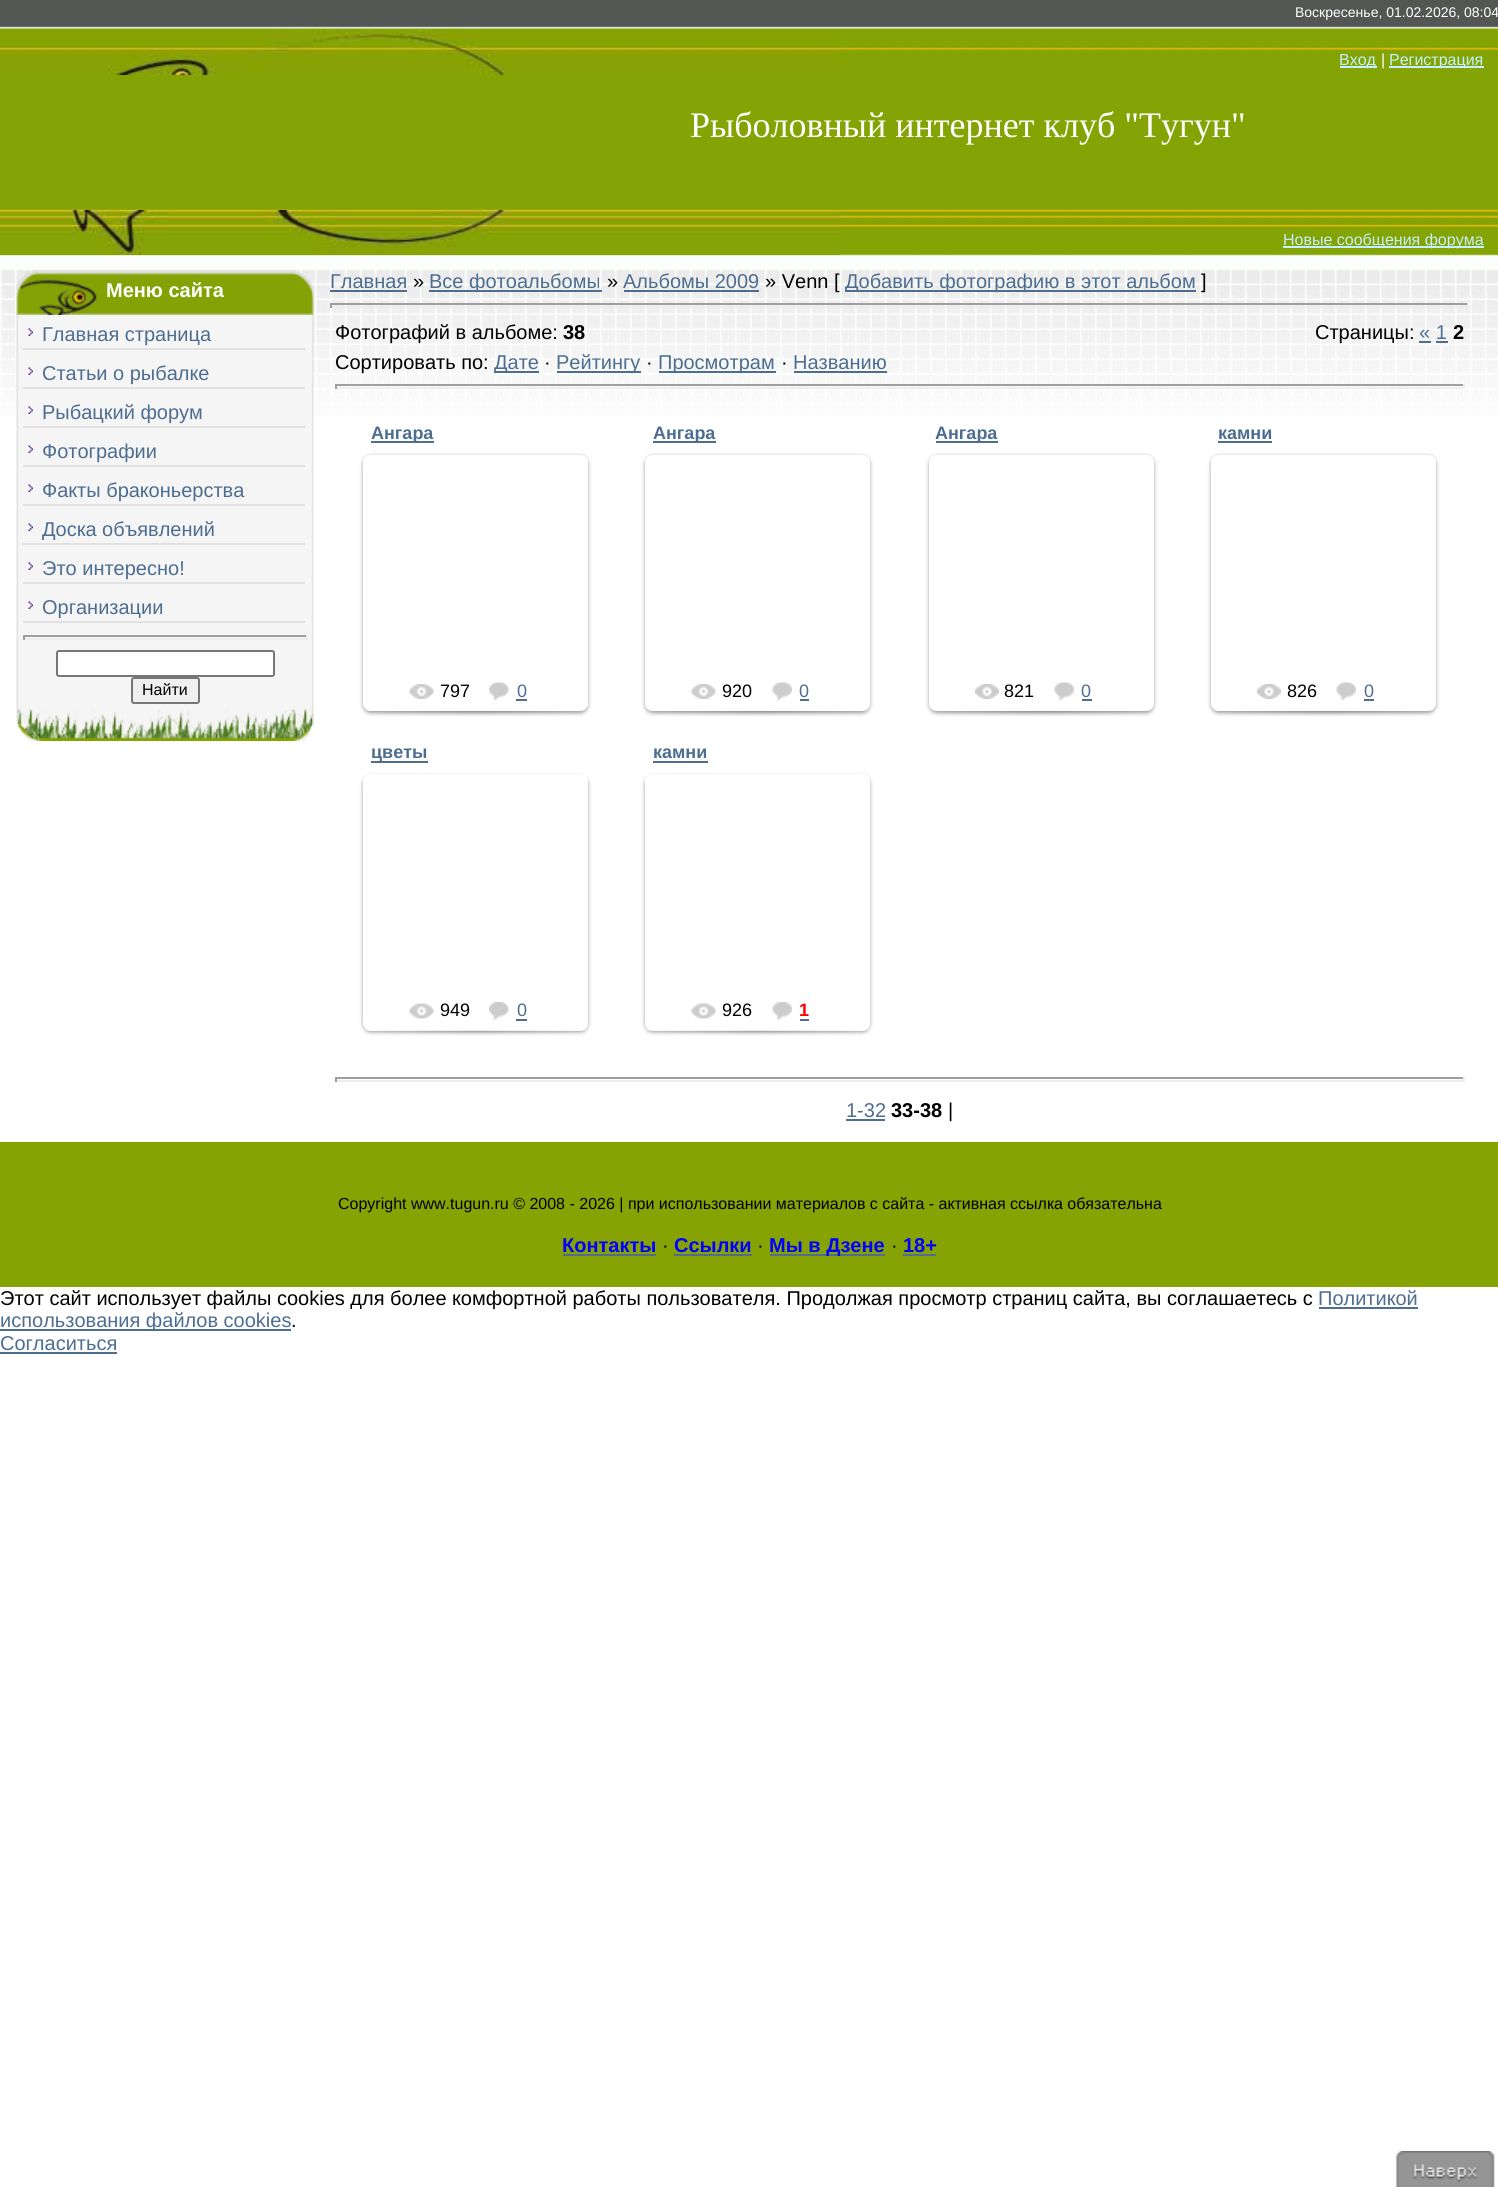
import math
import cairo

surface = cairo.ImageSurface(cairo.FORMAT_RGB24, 1498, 2187)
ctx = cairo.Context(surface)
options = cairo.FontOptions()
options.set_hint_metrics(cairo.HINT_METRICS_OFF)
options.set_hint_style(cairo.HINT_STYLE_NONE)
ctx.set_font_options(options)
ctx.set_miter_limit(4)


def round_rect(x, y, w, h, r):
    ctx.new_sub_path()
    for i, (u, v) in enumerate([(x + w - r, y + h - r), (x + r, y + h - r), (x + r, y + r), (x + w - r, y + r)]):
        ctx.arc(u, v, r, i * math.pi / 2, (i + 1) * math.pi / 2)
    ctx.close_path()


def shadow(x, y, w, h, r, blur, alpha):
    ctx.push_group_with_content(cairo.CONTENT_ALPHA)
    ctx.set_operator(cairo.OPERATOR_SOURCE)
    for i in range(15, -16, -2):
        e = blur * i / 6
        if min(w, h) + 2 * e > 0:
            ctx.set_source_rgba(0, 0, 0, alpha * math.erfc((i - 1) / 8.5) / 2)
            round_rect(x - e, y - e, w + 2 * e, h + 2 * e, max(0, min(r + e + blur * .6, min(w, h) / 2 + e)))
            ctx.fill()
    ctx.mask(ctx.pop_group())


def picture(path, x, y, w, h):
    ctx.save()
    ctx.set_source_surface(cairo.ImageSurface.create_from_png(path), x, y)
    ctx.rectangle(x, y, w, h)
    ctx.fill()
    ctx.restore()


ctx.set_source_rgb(1, 1, 1)
ctx.paint()
picture("img1.png", 0, 0, 1498, 416)
ctx.select_font_face("Liberation Sans")
ctx.set_font_size(14)
ctx.set_source_rgb(1, 1, 1)
ctx.move_to(1295, 17)
ctx.show_text("Воскресенье, 01.02.2026, 08:04")
picture("img2.png", 0, 30, 840, 45)
ctx.set_source_rgb(0.773, 0.941, 1)
ctx.rectangle(1340, 66, 37, 2)
ctx.fill()
ctx.set_font_size(16)
ctx.move_to(1339, 65)
ctx.show_text("Вход")
ctx.set_source_rgb(1, 1, 1)
ctx.move_to(1381, 65)
ctx.show_text("|")
ctx.set_source_rgb(0.773, 0.941, 1)
ctx.rectangle(1389, 66, 95, 2)
ctx.fill()
ctx.move_to(1389, 65)
ctx.show_text("Регистрация")
ctx.select_font_face("Liberation Serif")
ctx.set_font_size(36)
ctx.set_source_rgb(1, 1, 1)
ctx.move_to(690, 137)
ctx.show_text("Рыболовный интернет клуб \"Тугун\"")
picture("img3.png", 0, 210, 840, 45)
ctx.set_source_rgb(0.773, 0.941, 1)
ctx.rectangle(1283, 246, 201, 2)
ctx.fill()
ctx.select_font_face("Liberation Sans")
ctx.set_font_size(16)
ctx.move_to(1283, 245)
ctx.show_text("Новые сообщения форума")
picture("img4.png", 16, 270, 298, 45)
ctx.select_font_face("Liberation Sans", cairo.FONT_SLANT_NORMAL, cairo.FONT_WEIGHT_BOLD)
ctx.set_font_size(20)
ctx.set_source_rgb(1, 1, 1)
ctx.move_to(106, 297)
ctx.show_text("Меню сайта")
picture("img5.png", 16, 315, 298, 426)
picture("img6.png", 27, 328, 6, 8)
ctx.set_source_rgb(0.882, 0.882, 0.882)
ctx.rectangle(23, 348, 282, 2)
ctx.fill()
ctx.select_font_face("Liberation Sans")
ctx.set_source_rgb(0.302, 0.427, 0.569)
ctx.move_to(42, 341)
ctx.show_text("Главная страница")
picture("img6.png", 27, 367, 6, 8)
ctx.set_source_rgb(0.882, 0.882, 0.882)
ctx.rectangle(23, 387, 282, 2)
ctx.fill()
ctx.set_source_rgb(0.302, 0.427, 0.569)
ctx.move_to(42, 380)
ctx.show_text("Статьи о рыбалке")
picture("img6.png", 27, 406, 6, 8)
ctx.set_source_rgb(0.882, 0.882, 0.882)
ctx.rectangle(23, 426, 282, 2)
ctx.fill()
ctx.set_source_rgb(0.302, 0.427, 0.569)
ctx.move_to(42, 419)
ctx.show_text("Рыбацкий форум")
picture("img6.png", 27, 445, 6, 8)
ctx.set_source_rgb(0.882, 0.882, 0.882)
ctx.rectangle(23, 465, 282, 2)
ctx.fill()
ctx.set_source_rgb(0.302, 0.427, 0.569)
ctx.move_to(42, 458)
ctx.show_text("Фотографии")
picture("img6.png", 27, 484, 6, 8)
ctx.set_source_rgb(0.882, 0.882, 0.882)
ctx.rectangle(23, 504, 282, 2)
ctx.fill()
ctx.set_source_rgb(0.302, 0.427, 0.569)
ctx.move_to(42, 497)
ctx.show_text("Факты браконьерства")
picture("img6.png", 27, 523, 6, 8)
ctx.set_source_rgb(0.882, 0.882, 0.882)
ctx.rectangle(23, 543, 282, 2)
ctx.fill()
ctx.set_source_rgb(0.302, 0.427, 0.569)
ctx.move_to(42, 536)
ctx.show_text("Доска объявлений")
picture("img6.png", 27, 562, 6, 8)
ctx.set_source_rgb(0.882, 0.882, 0.882)
ctx.rectangle(23, 582, 282, 2)
ctx.fill()
ctx.set_source_rgb(0.302, 0.427, 0.569)
ctx.move_to(42, 575)
ctx.show_text("Это интересно!")
picture("img6.png", 27, 601, 6, 8)
ctx.set_source_rgb(0.882, 0.882, 0.882)
ctx.rectangle(23, 621, 282, 2)
ctx.fill()
ctx.set_source_rgb(0.302, 0.427, 0.569)
ctx.move_to(42, 614)
ctx.show_text("Организации")
ctx.set_source_rgb(0.624, 0.624, 0.624)
ctx.rectangle(23, 635, 285, 2)
ctx.fill()
ctx.set_source_rgb(0.933, 0.933, 0.933)
ctx.rectangle(306, 635, 2, 5)
ctx.fill()
ctx.rectangle(23, 638, 285, 2)
ctx.fill()
ctx.set_source_rgb(0.624, 0.624, 0.624)
ctx.rectangle(23, 635, 2, 5)
ctx.fill()
ctx.set_source_rgb(1, 1, 1)
round_rect(57, 651, 217, 25, 2)
ctx.fill_preserve()
ctx.set_source_rgb(0.463, 0.463, 0.463)
ctx.stroke()
ctx.set_source_rgb(0.937, 0.937, 0.937)
round_rect(132, 678, 67, 25, 2)
ctx.fill_preserve()
ctx.set_source_rgb(0.463, 0.463, 0.463)
ctx.stroke()
ctx.set_font_size(16)
ctx.set_source_rgb(0, 0, 0)
ctx.move_to(142, 695)
ctx.show_text("Найти")
ctx.set_font_size(20)
ctx.set_source_rgb(0.302, 0.427, 0.569)
ctx.move_to(330, 288)
ctx.show_text("Главная")
ctx.rectangle(330, 290, 77, 2)
ctx.fill()
ctx.set_source_rgb(0, 0, 0)
ctx.move_to(413, 288)
ctx.show_text("»")
ctx.set_source_rgb(0.302, 0.427, 0.569)
ctx.rectangle(429, 290, 173, 2)
ctx.fill()
ctx.move_to(429, 288)
ctx.show_text("Все фотоальбомы")
ctx.set_source_rgb(0, 0, 0)
ctx.move_to(607, 288)
ctx.show_text("»")
ctx.set_source_rgb(0.302, 0.427, 0.569)
ctx.move_to(623, 288)
ctx.show_text("Альбомы 2009")
ctx.rectangle(624, 290, 135, 2)
ctx.fill()
ctx.set_source_rgb(0, 0, 0)
ctx.move_to(765, 288)
ctx.show_text("» Venn [")
ctx.set_source_rgb(0.302, 0.427, 0.569)
ctx.rectangle(845, 290, 351, 2)
ctx.fill()
ctx.move_to(845, 288)
ctx.show_text("Добавить фотографию в этот альбом")
ctx.set_source_rgb(0, 0, 0)
ctx.move_to(1201, 288)
ctx.show_text("]")
ctx.set_source_rgb(0.624, 0.624, 0.624)
ctx.rectangle(330, 303, 1139, 2)
ctx.fill()
ctx.set_source_rgb(0.933, 0.933, 0.933)
ctx.rectangle(1467, 303, 2, 5)
ctx.fill()
ctx.rectangle(330, 306, 1139, 2)
ctx.fill()
ctx.set_source_rgb(0.624, 0.624, 0.624)
ctx.rectangle(330, 303, 2, 5)
ctx.fill()
ctx.set_source_rgb(0, 0, 0)
ctx.move_to(335, 339)
ctx.show_text("Фотографий в альбоме:")
ctx.select_font_face("Liberation Sans", cairo.FONT_SLANT_NORMAL, cairo.FONT_WEIGHT_BOLD)
ctx.move_to(563, 339)
ctx.show_text("38")
ctx.select_font_face("Liberation Sans")
ctx.move_to(1315, 339)
ctx.show_text("Страницы:")
ctx.set_source_rgb(0.302, 0.427, 0.569)
ctx.move_to(1419, 339)
ctx.show_text("« 1")
ctx.rectangle(1419, 341, 12, 2)
ctx.fill()
ctx.rectangle(1436, 341, 12, 2)
ctx.fill()
ctx.select_font_face("Liberation Sans", cairo.FONT_SLANT_NORMAL, cairo.FONT_WEIGHT_BOLD)
ctx.set_source_rgb(0, 0, 0)
ctx.move_to(1453, 339)
ctx.show_text("2")
ctx.select_font_face("Liberation Sans")
ctx.move_to(335, 369)
ctx.show_text("Сортировать по:")
ctx.set_source_rgb(0.302, 0.427, 0.569)
ctx.rectangle(494, 371, 45, 2)
ctx.fill()
ctx.move_to(494, 369)
ctx.show_text("Дате")
ctx.set_source_rgb(0, 0, 0)
ctx.move_to(544, 369)
ctx.show_text("·")
ctx.set_source_rgb(0.302, 0.427, 0.569)
ctx.rectangle(557, 371, 84, 2)
ctx.fill()
ctx.move_to(556, 369)
ctx.show_text("Рейтингу")
ctx.set_source_rgb(0, 0, 0)
ctx.move_to(646, 369)
ctx.show_text("·")
ctx.set_source_rgb(0.302, 0.427, 0.569)
ctx.rectangle(659, 371, 117, 2)
ctx.fill()
ctx.move_to(658, 369)
ctx.show_text("Просмотрам")
ctx.set_source_rgb(0, 0, 0)
ctx.move_to(781, 369)
ctx.show_text("·")
ctx.set_source_rgb(0.302, 0.427, 0.569)
ctx.move_to(793, 369)
ctx.show_text("Названию")
ctx.rectangle(794, 371, 93, 2)
ctx.fill()
ctx.set_source_rgb(0.624, 0.624, 0.624)
ctx.rectangle(335, 384, 1129, 2)
ctx.fill()
ctx.set_source_rgb(0.933, 0.933, 0.933)
ctx.rectangle(1463, 384, 2, 5)
ctx.fill()
ctx.rectangle(335, 387, 1129, 2)
ctx.fill()
ctx.set_source_rgb(0.624, 0.624, 0.624)
ctx.rectangle(335, 384, 2, 5)
ctx.fill()
ctx.set_source_rgb(0.302, 0.427, 0.569)
ctx.rectangle(371, 441, 63, 2)
ctx.fill()
ctx.select_font_face("Liberation Sans", cairo.FONT_SLANT_NORMAL, cairo.FONT_WEIGHT_BOLD)
ctx.set_font_size(18)
ctx.move_to(371, 439)
ctx.show_text("Ангара")
ctx.save()
ctx.set_fill_rule(cairo.FILL_RULE_EVEN_ODD)
ctx.new_path()
ctx.move_to(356, 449)
ctx.line_to(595, 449)
ctx.line_to(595, 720)
ctx.line_to(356, 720)
ctx.close_path()
ctx.move_to(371, 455)
ctx.line_to(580, 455)
ctx.curve_to(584.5, 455, 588, 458.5, 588, 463)
ctx.line_to(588, 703)
ctx.curve_to(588, 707.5, 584.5, 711, 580, 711)
ctx.line_to(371, 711)
ctx.curve_to(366.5, 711, 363, 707.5, 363, 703)
ctx.line_to(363, 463)
ctx.curve_to(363, 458.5, 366.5, 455, 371, 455)
ctx.close_path()
ctx.clip()
ctx.set_source_rgb(0, 0, 0)
shadow(363, 456, 225, 257, 8, 2, 0.37)
ctx.restore()
picture("img7.png", 409, 684, 25, 15)
ctx.select_font_face("Liberation Sans")
ctx.set_source_rgb(0, 0, 0)
ctx.move_to(440, 697)
ctx.show_text("797")
picture("img8.png", 489, 682, 20, 19)
ctx.set_source_rgb(0.302, 0.427, 0.569)
ctx.move_to(517, 697)
ctx.show_text("0")
ctx.rectangle(516, 699, 11, 2)
ctx.fill()
picture("img9.png", 363, 711, 225, 5)
ctx.rectangle(653, 441, 63, 2)
ctx.fill()
ctx.select_font_face("Liberation Sans", cairo.FONT_SLANT_NORMAL, cairo.FONT_WEIGHT_BOLD)
ctx.move_to(653, 439)
ctx.show_text("Ангара")
ctx.save()
ctx.set_fill_rule(cairo.FILL_RULE_EVEN_ODD)
ctx.new_path()
ctx.move_to(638, 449)
ctx.line_to(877, 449)
ctx.line_to(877, 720)
ctx.line_to(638, 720)
ctx.close_path()
ctx.move_to(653, 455)
ctx.line_to(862, 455)
ctx.curve_to(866.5, 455, 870, 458.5, 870, 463)
ctx.line_to(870, 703)
ctx.curve_to(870, 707.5, 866.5, 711, 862, 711)
ctx.line_to(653, 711)
ctx.curve_to(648.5, 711, 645, 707.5, 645, 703)
ctx.line_to(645, 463)
ctx.curve_to(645, 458.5, 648.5, 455, 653, 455)
ctx.close_path()
ctx.clip()
ctx.set_source_rgb(0, 0, 0)
shadow(645, 456, 225, 257, 8, 2, 0.37)
ctx.restore()
picture("img7.png", 691, 684, 25, 15)
ctx.select_font_face("Liberation Sans")
ctx.set_source_rgb(0, 0, 0)
ctx.move_to(722, 697)
ctx.show_text("920")
picture("img10.png", 772, 682, 20, 19)
ctx.set_source_rgb(0.302, 0.427, 0.569)
ctx.move_to(799, 697)
ctx.show_text("0")
ctx.rectangle(800, 699, 9, 2)
ctx.fill()
picture("img11.png", 645, 711, 225, 5)
ctx.rectangle(936, 441, 62, 2)
ctx.fill()
ctx.select_font_face("Liberation Sans", cairo.FONT_SLANT_NORMAL, cairo.FONT_WEIGHT_BOLD)
ctx.move_to(935, 439)
ctx.show_text("Ангара")
ctx.save()
ctx.set_fill_rule(cairo.FILL_RULE_EVEN_ODD)
ctx.new_path()
ctx.move_to(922, 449)
ctx.line_to(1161, 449)
ctx.line_to(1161, 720)
ctx.line_to(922, 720)
ctx.close_path()
ctx.move_to(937, 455)
ctx.line_to(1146, 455)
ctx.curve_to(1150.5, 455, 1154, 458.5, 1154, 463)
ctx.line_to(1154, 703)
ctx.curve_to(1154, 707.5, 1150.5, 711, 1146, 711)
ctx.line_to(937, 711)
ctx.curve_to(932.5, 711, 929, 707.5, 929, 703)
ctx.line_to(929, 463)
ctx.curve_to(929, 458.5, 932.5, 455, 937, 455)
ctx.close_path()
ctx.clip()
ctx.set_source_rgb(0, 0, 0)
shadow(929, 456, 225, 257, 8, 2, 0.37)
ctx.restore()
picture("img12.png", 975, 684, 24, 15)
ctx.select_font_face("Liberation Sans")
ctx.set_source_rgb(0, 0, 0)
ctx.move_to(1004, 697)
ctx.show_text("821")
picture("img13.png", 1054, 682, 20, 19)
ctx.set_source_rgb(0.302, 0.427, 0.569)
ctx.move_to(1081, 697)
ctx.show_text("0")
ctx.rectangle(1082, 699, 10, 2)
ctx.fill()
picture("img14.png", 929, 711, 224, 5)
ctx.select_font_face("Liberation Sans", cairo.FONT_SLANT_NORMAL, cairo.FONT_WEIGHT_BOLD)
ctx.move_to(1218, 439)
ctx.show_text("камни")
ctx.rectangle(1218, 441, 54, 2)
ctx.fill()
ctx.save()
ctx.set_fill_rule(cairo.FILL_RULE_EVEN_ODD)
ctx.new_path()
ctx.move_to(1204, 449)
ctx.line_to(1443, 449)
ctx.line_to(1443, 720)
ctx.line_to(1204, 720)
ctx.close_path()
ctx.move_to(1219, 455)
ctx.line_to(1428, 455)
ctx.curve_to(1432.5, 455, 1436, 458.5, 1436, 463)
ctx.line_to(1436, 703)
ctx.curve_to(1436, 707.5, 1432.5, 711, 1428, 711)
ctx.line_to(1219, 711)
ctx.curve_to(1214.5, 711, 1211, 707.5, 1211, 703)
ctx.line_to(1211, 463)
ctx.curve_to(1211, 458.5, 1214.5, 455, 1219, 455)
ctx.close_path()
ctx.clip()
ctx.set_source_rgb(0, 0, 0)
shadow(1211, 456, 225, 257, 8, 2, 0.37)
ctx.restore()
picture("img15.png", 1257, 684, 24, 15)
ctx.select_font_face("Liberation Sans")
ctx.set_source_rgb(0, 0, 0)
ctx.move_to(1287, 697)
ctx.show_text("826")
picture("img13.png", 1336, 682, 20, 19)
ctx.set_source_rgb(0.302, 0.427, 0.569)
ctx.move_to(1364, 697)
ctx.show_text("0")
ctx.rectangle(1364, 699, 10, 2)
ctx.fill()
picture("img14.png", 1211, 711, 224, 5)
ctx.rectangle(371, 761, 57, 2)
ctx.fill()
ctx.select_font_face("Liberation Sans", cairo.FONT_SLANT_NORMAL, cairo.FONT_WEIGHT_BOLD)
ctx.move_to(371, 758)
ctx.show_text("цветы")
ctx.save()
ctx.set_fill_rule(cairo.FILL_RULE_EVEN_ODD)
ctx.new_path()
ctx.move_to(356, 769)
ctx.line_to(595, 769)
ctx.line_to(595, 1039)
ctx.line_to(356, 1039)
ctx.close_path()
ctx.move_to(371, 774)
ctx.line_to(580, 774)
ctx.curve_to(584.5, 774, 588, 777.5, 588, 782)
ctx.line_to(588, 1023)
ctx.curve_to(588, 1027.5, 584.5, 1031, 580, 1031)
ctx.line_to(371, 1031)
ctx.curve_to(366.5, 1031, 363, 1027.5, 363, 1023)
ctx.line_to(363, 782)
ctx.curve_to(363, 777.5, 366.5, 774, 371, 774)
ctx.close_path()
ctx.clip()
ctx.set_source_rgb(0, 0, 0)
shadow(363, 776, 225, 256, 8, 2, 0.37)
ctx.restore()
picture("img16.png", 409, 1003, 25, 16)
ctx.select_font_face("Liberation Sans")
ctx.set_source_rgb(0, 0, 0)
ctx.move_to(440, 1016)
ctx.show_text("949")
picture("img17.png", 489, 1002, 20, 18)
ctx.set_source_rgb(0.302, 0.427, 0.569)
ctx.move_to(517, 1016)
ctx.show_text("0")
ctx.rectangle(516, 1019, 11, 2)
ctx.fill()
picture("img18.png", 363, 1030, 225, 5)
ctx.select_font_face("Liberation Sans", cairo.FONT_SLANT_NORMAL, cairo.FONT_WEIGHT_BOLD)
ctx.move_to(653, 758)
ctx.show_text("камни")
ctx.rectangle(653, 761, 55, 2)
ctx.fill()
ctx.save()
ctx.set_fill_rule(cairo.FILL_RULE_EVEN_ODD)
ctx.new_path()
ctx.move_to(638, 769)
ctx.line_to(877, 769)
ctx.line_to(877, 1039)
ctx.line_to(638, 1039)
ctx.close_path()
ctx.move_to(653, 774)
ctx.line_to(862, 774)
ctx.curve_to(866.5, 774, 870, 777.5, 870, 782)
ctx.line_to(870, 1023)
ctx.curve_to(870, 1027.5, 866.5, 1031, 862, 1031)
ctx.line_to(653, 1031)
ctx.curve_to(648.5, 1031, 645, 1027.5, 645, 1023)
ctx.line_to(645, 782)
ctx.curve_to(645, 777.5, 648.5, 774, 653, 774)
ctx.close_path()
ctx.clip()
ctx.set_source_rgb(0, 0, 0)
shadow(645, 776, 225, 256, 8, 2, 0.37)
ctx.restore()
picture("img16.png", 691, 1003, 25, 16)
ctx.select_font_face("Liberation Sans")
ctx.set_source_rgb(0, 0, 0)
ctx.move_to(722, 1016)
ctx.show_text("926")
picture("img19.png", 772, 1002, 20, 18)
ctx.select_font_face("Liberation Sans", cairo.FONT_SLANT_NORMAL, cairo.FONT_WEIGHT_BOLD)
ctx.set_source_rgb(1, 0, 0)
ctx.move_to(799, 1016)
ctx.show_text("1")
ctx.set_source_rgb(0.302, 0.427, 0.569)
ctx.rectangle(800, 1019, 9, 2)
ctx.fill()
picture("img20.png", 645, 1030, 225, 5)
ctx.set_source_rgb(0.624, 0.624, 0.624)
ctx.rectangle(335, 1077, 1129, 2)
ctx.fill()
ctx.set_source_rgb(0.933, 0.933, 0.933)
ctx.rectangle(1463, 1077, 2, 5)
ctx.fill()
ctx.rectangle(335, 1080, 1129, 2)
ctx.fill()
ctx.set_source_rgb(0.624, 0.624, 0.624)
ctx.rectangle(335, 1077, 2, 5)
ctx.fill()
ctx.select_font_face("Liberation Sans")
ctx.set_font_size(20)
ctx.set_source_rgb(0.302, 0.427, 0.569)
ctx.move_to(846, 1117)
ctx.show_text("1-32")
ctx.rectangle(846, 1119, 39, 2)
ctx.fill()
ctx.select_font_face("Liberation Sans", cairo.FONT_SLANT_NORMAL, cairo.FONT_WEIGHT_BOLD)
ctx.set_source_rgb(0, 0, 0)
ctx.move_to(891, 1117)
ctx.show_text("33-38")
ctx.select_font_face("Liberation Sans")
ctx.move_to(948, 1117)
ctx.show_text("|")
ctx.set_source_rgb(0.529, 0.639, 0.012)
ctx.rectangle(0, 1142, 1498, 145)
ctx.fill()
ctx.set_font_size(16)
ctx.set_source_rgb(0, 0, 0)
ctx.move_to(338, 1209)
ctx.show_text("Copyright www.tugun.ru © 2008 - 2026 | при использовании материалов с сайта - активная ссылка обязательна")
ctx.select_font_face("Liberation Sans", cairo.FONT_SLANT_NORMAL, cairo.FONT_WEIGHT_BOLD)
ctx.set_font_size(20)
ctx.set_source_rgb(0, 0, 1)
ctx.move_to(562, 1252)
ctx.show_text("Контакты")
ctx.set_source_rgb(0.302, 0.427, 0.569)
ctx.rectangle(563, 1254, 93, 2)
ctx.fill()
ctx.select_font_face("Liberation Sans")
ctx.set_source_rgb(0, 0, 0)
ctx.move_to(662, 1252)
ctx.show_text("·")
ctx.select_font_face("Liberation Sans", cairo.FONT_SLANT_NORMAL, cairo.FONT_WEIGHT_BOLD)
ctx.set_source_rgb(0, 0, 1)
ctx.move_to(674, 1252)
ctx.show_text("Ссылки")
ctx.set_source_rgb(0.302, 0.427, 0.569)
ctx.rectangle(674, 1254, 78, 2)
ctx.fill()
ctx.select_font_face("Liberation Sans")
ctx.set_source_rgb(0, 0, 0)
ctx.move_to(757, 1252)
ctx.show_text("·")
ctx.set_source_rgb(0.302, 0.427, 0.569)
ctx.rectangle(770, 1254, 115, 2)
ctx.fill()
ctx.select_font_face("Liberation Sans", cairo.FONT_SLANT_NORMAL, cairo.FONT_WEIGHT_BOLD)
ctx.set_source_rgb(0, 0, 1)
ctx.move_to(769, 1252)
ctx.show_text("Мы в Дзене")
ctx.select_font_face("Liberation Sans")
ctx.set_source_rgb(0, 0, 0)
ctx.move_to(891, 1252)
ctx.show_text("·")
ctx.select_font_face("Liberation Sans", cairo.FONT_SLANT_NORMAL, cairo.FONT_WEIGHT_BOLD)
ctx.set_source_rgb(0, 0, 1)
ctx.move_to(903, 1252)
ctx.show_text("18+")
ctx.set_source_rgb(0.302, 0.427, 0.569)
ctx.rectangle(903, 1254, 33, 2)
ctx.fill()
ctx.select_font_face("Liberation Sans")
ctx.set_source_rgb(0, 0, 0)
ctx.move_to(0, 1305)
ctx.show_text("Этот сайт использует файлы cookies для более комфортной работы пользователя. Продолжая просмотр страниц сайта, вы соглашаетесь с")
ctx.set_source_rgb(0.302, 0.427, 0.569)
ctx.move_to(1318, 1305)
ctx.show_text("Политикой")
ctx.rectangle(1319, 1307, 99, 2)
ctx.fill()
ctx.rectangle(0, 1329, 291, 2)
ctx.fill()
ctx.move_to(0, 1327)
ctx.show_text("использования файлов cookies")
ctx.set_source_rgb(0, 0, 0)
ctx.move_to(291, 1327)
ctx.show_text(".")
ctx.set_source_rgb(0.302, 0.427, 0.569)
ctx.move_to(0, 1350)
ctx.show_text("Согласиться")
ctx.rectangle(0, 1352, 117, 2)
ctx.fill()
picture("img21.png", 1395, 2151, 100, 36)
surface.write_to_png("page.png")
